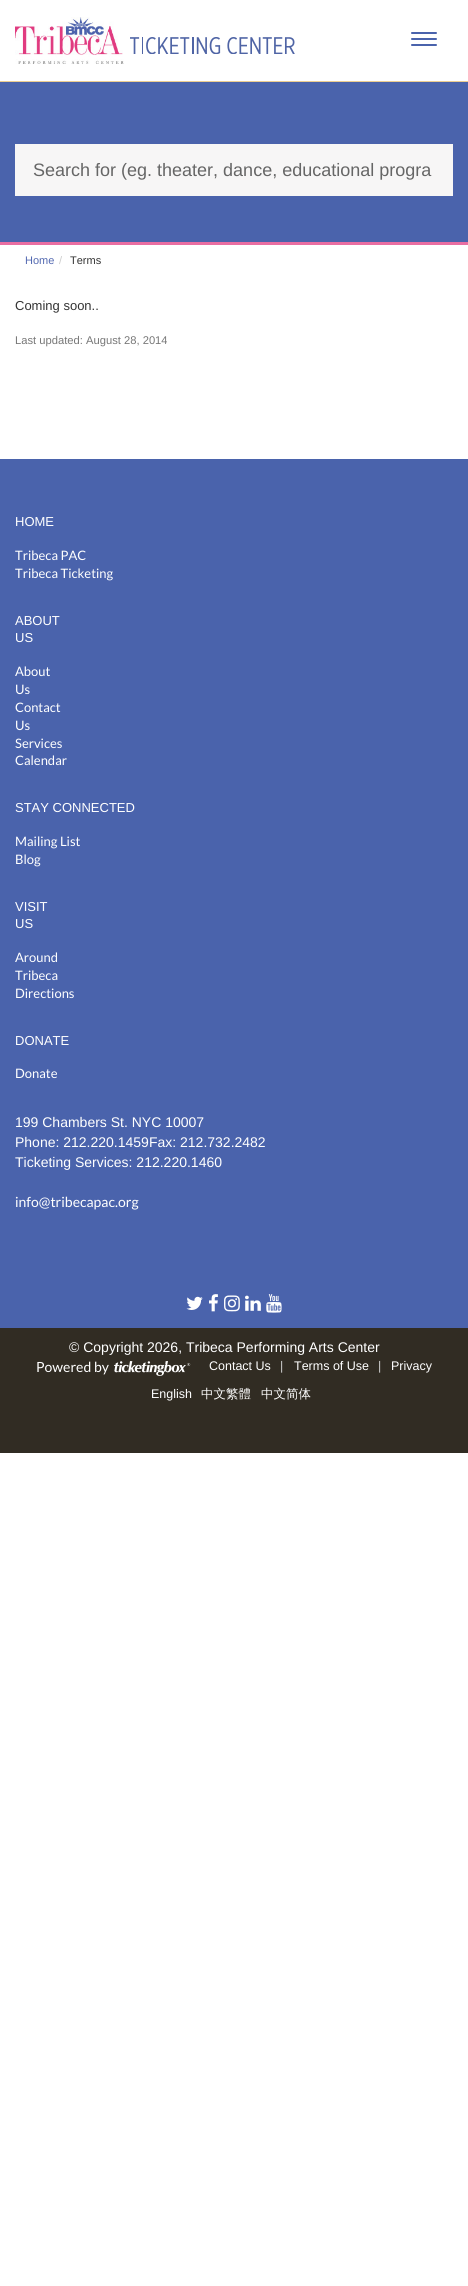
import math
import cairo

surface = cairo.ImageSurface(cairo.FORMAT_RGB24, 468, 2286)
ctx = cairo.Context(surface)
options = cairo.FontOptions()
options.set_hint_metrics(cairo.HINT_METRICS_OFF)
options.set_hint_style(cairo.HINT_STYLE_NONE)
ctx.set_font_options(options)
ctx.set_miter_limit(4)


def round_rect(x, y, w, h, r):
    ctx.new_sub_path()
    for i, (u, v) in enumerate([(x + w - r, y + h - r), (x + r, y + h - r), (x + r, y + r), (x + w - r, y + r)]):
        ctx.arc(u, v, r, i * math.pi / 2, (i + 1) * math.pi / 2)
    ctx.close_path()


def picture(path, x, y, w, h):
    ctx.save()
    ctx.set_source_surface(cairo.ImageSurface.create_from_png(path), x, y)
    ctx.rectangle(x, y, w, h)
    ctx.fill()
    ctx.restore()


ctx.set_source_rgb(1, 1, 1)
ctx.paint()
ctx.set_source_rgb(0.922, 0.808, 0.573)
ctx.rectangle(0, 81, 468, 1)
ctx.fill()
picture("img1.png", 15, 17, 109, 47)
picture("img2.png", 130, 37, 165, 17)
ctx.set_source_rgb(0.29, 0.388, 0.675)
round_rect(411, 32, 26, 2, 1)
ctx.fill()
round_rect(411, 38, 26, 2, 1)
ctx.fill()
round_rect(411, 44, 26, 2, 1)
ctx.fill()
ctx.rectangle(0, 82, 468, 160)
ctx.fill()
ctx.set_source_rgb(0.914, 0.431, 0.635)
ctx.rectangle(0, 242, 468, 3)
ctx.fill()
ctx.set_source_rgb(0.965, 0.961, 0.961)
ctx.rectangle(15, 144, 438, 52)
ctx.fill()
ctx.select_font_face("Liberation Sans")
ctx.set_font_size(18)
ctx.set_source_rgb(0.4, 0.4, 0.4)
ctx.move_to(33, 176)
ctx.show_text("Search for (eg. theater, dance, educational progra")
ctx.set_font_size(11)
ctx.set_source_rgb(0.325, 0.412, 0.694)
ctx.move_to(25, 264)
ctx.show_text("Home")
ctx.set_source_rgb(0.8, 0.8, 0.8)
ctx.move_to(59, 264)
ctx.show_text("/")
ctx.set_source_rgb(0.2, 0.2, 0.2)
ctx.move_to(70, 264)
ctx.show_text("Terms")
ctx.set_font_size(13)
ctx.move_to(15, 310)
ctx.show_text("Coming soon..")
ctx.set_font_size(11.2)
ctx.set_source_rgb(0.467, 0.467, 0.467)
ctx.move_to(15, 344)
ctx.show_text("Last updated: August 28, 2014")
ctx.set_source_rgb(0.192, 0.173, 0.137)
ctx.rectangle(0, 1328, 468, 125)
ctx.fill()
ctx.set_source_rgb(0.29, 0.388, 0.675)
ctx.rectangle(0, 459, 468, 869)
ctx.fill()
ctx.set_font_size(13)
ctx.set_source_rgb(1, 1, 1)
ctx.move_to(15, 526)
ctx.show_text("HOME")
ctx.select_font_face("Lato")
ctx.move_to(15, 560)
ctx.show_text("Tribeca PAC")
ctx.move_to(15, 578)
ctx.show_text("Tribeca Ticketing")
ctx.select_font_face("Liberation Sans")
ctx.move_to(15, 625)
ctx.show_text("ABOUT")
ctx.move_to(15, 642)
ctx.show_text("US")
ctx.select_font_face("Lato")
ctx.move_to(15, 676)
ctx.show_text("About")
ctx.move_to(15, 694)
ctx.show_text("Us")
ctx.move_to(15, 712)
ctx.show_text("Contact")
ctx.move_to(15, 730)
ctx.show_text("Us")
ctx.move_to(15, 748)
ctx.show_text("Services")
ctx.move_to(15, 765)
ctx.show_text("Calendar")
ctx.select_font_face("Liberation Sans")
ctx.move_to(15, 812)
ctx.show_text("STAY CONNECTED")
ctx.select_font_face("Lato")
ctx.move_to(15, 846)
ctx.show_text("Mailing List")
ctx.move_to(15, 864)
ctx.show_text("Blog")
ctx.select_font_face("Liberation Sans")
ctx.move_to(15, 911)
ctx.show_text("VISIT")
ctx.move_to(15, 928)
ctx.show_text("US")
ctx.select_font_face("Lato")
ctx.move_to(15, 962)
ctx.show_text("Around")
ctx.move_to(15, 980)
ctx.show_text("Tribeca")
ctx.move_to(15, 998)
ctx.show_text("Directions")
ctx.select_font_face("Liberation Sans")
ctx.move_to(15, 1045)
ctx.show_text("DONATE")
ctx.select_font_face("Lato")
ctx.move_to(15, 1078)
ctx.show_text("Donate")
ctx.select_font_face("Liberation Sans")
ctx.set_font_size(14)
ctx.move_to(15, 1127)
ctx.show_text("199 Chambers St. NYC 10007")
ctx.move_to(15, 1147)
ctx.show_text("Phone: 212.220.1459Fax: 212.732.2482")
ctx.move_to(15, 1167)
ctx.show_text("Ticketing Services: 212.220.1460")
ctx.select_font_face("Lato")
ctx.move_to(15, 1207)
ctx.show_text("info@tribecapac.org")
picture("img3.png", 186, 1296, 17, 14)
picture("img4.png", 209, 1294, 9, 18)
picture("img5.png", 224, 1295, 16, 17)
picture("img6.png", 245, 1295, 16, 16)
picture("img7.png", 266, 1294, 16, 19)
ctx.select_font_face("Liberation Sans")
ctx.move_to(69, 1352)
ctx.show_text("© Copyright 2026, Tribeca Performing Arts Center")
ctx.select_font_face("Lato")
ctx.move_to(36, 1372)
ctx.show_text("Powered by")
picture("img8.png", 114, 1361, 77, 15)
ctx.select_font_face("Liberation Sans")
ctx.set_font_size(12.5)
ctx.move_to(209, 1370)
ctx.show_text("Contact Us")
ctx.set_source_rgb(0.8, 0.8, 0.8)
ctx.move_to(280, 1370)
ctx.show_text("|")
ctx.set_source_rgb(1, 1, 1)
ctx.move_to(294, 1370)
ctx.show_text("Terms of Use")
ctx.set_source_rgb(0.8, 0.8, 0.8)
ctx.move_to(378, 1370)
ctx.show_text("|")
ctx.set_source_rgb(1, 1, 1)
ctx.move_to(391, 1370)
ctx.show_text("Privacy")
ctx.move_to(151, 1398)
ctx.show_text("English")
ctx.select_font_face("WenQuanYi Zen Hei Medium")
ctx.move_to(201, 1398)
ctx.show_text("中文繁體")
ctx.move_to(261, 1398)
ctx.show_text("中文简体")
surface.write_to_png("page.png")
